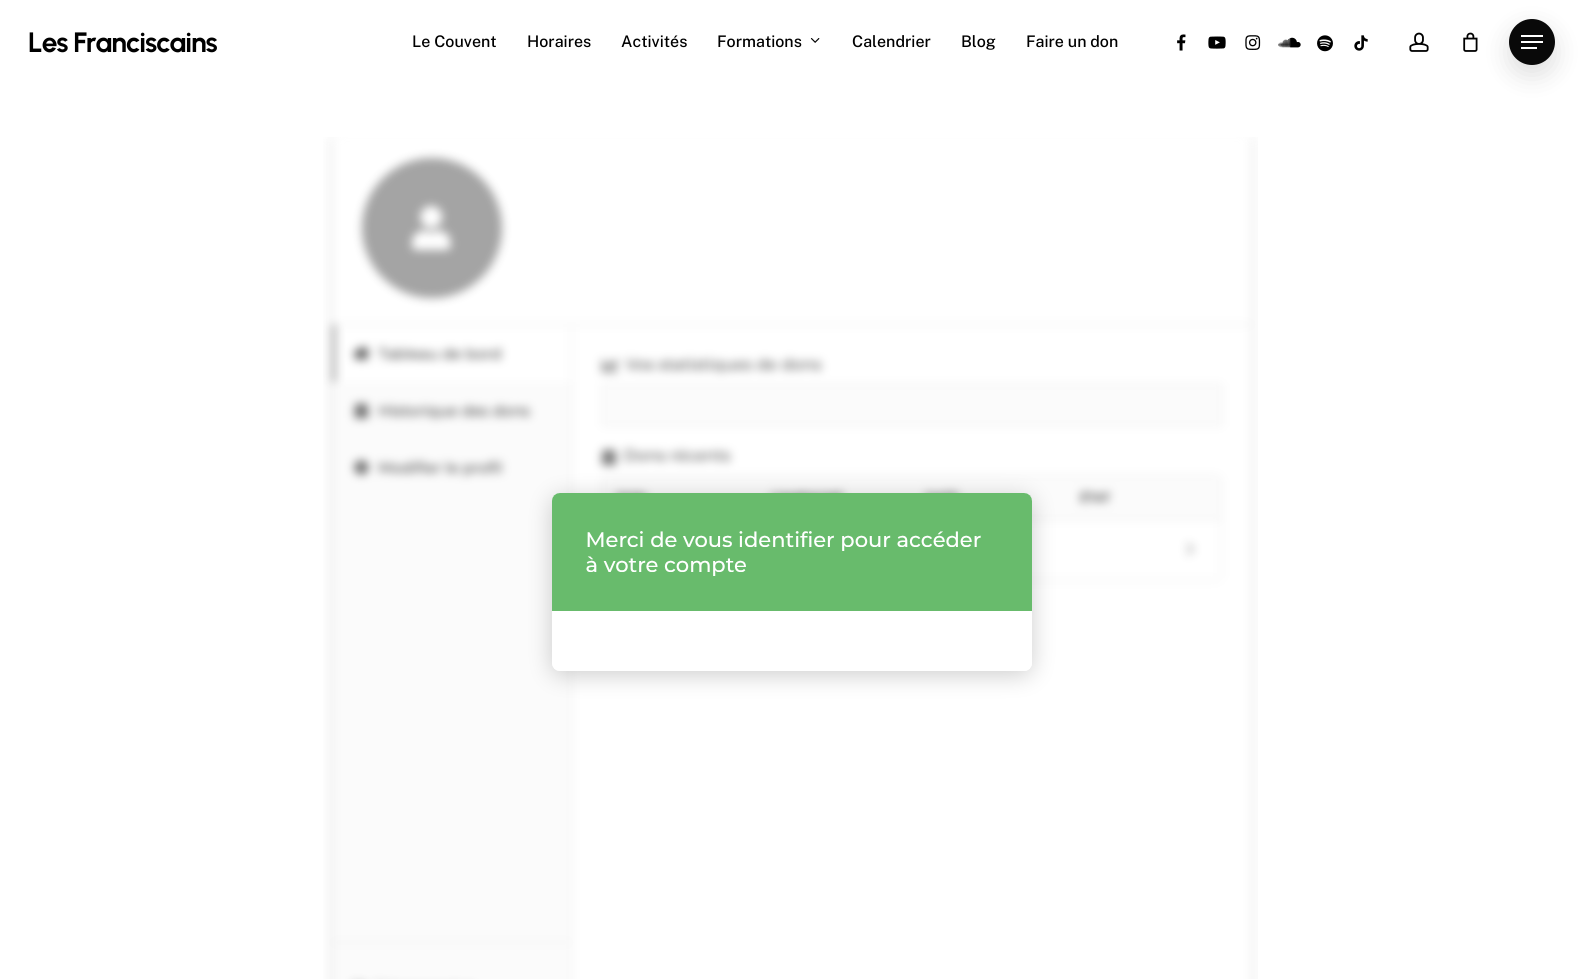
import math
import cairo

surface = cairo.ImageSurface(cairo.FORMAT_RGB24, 1583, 979)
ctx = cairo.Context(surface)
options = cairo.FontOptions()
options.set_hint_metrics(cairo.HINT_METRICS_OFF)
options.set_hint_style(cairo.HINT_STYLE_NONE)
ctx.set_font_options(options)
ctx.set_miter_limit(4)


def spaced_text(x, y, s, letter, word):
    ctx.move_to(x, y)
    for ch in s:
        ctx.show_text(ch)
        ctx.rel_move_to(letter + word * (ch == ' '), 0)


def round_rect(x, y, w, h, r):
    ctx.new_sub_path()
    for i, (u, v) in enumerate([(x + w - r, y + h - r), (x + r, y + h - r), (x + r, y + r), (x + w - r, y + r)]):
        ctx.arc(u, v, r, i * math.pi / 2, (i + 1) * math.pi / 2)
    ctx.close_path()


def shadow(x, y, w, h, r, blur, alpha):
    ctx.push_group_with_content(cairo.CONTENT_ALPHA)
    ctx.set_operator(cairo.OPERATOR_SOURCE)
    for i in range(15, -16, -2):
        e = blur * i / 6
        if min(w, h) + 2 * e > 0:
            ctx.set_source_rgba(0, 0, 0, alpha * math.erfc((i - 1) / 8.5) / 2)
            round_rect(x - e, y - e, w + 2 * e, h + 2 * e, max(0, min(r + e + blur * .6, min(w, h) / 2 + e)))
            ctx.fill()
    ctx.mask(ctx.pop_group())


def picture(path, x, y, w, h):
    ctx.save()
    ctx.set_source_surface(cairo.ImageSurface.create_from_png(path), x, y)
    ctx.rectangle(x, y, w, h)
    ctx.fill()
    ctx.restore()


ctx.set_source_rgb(1, 1, 1)
ctx.paint()
ctx.select_font_face("Urbanist", cairo.FONT_SLANT_NORMAL, cairo.FONT_WEIGHT_BOLD)
ctx.set_font_size(28)
ctx.set_source_rgb(0, 0, 0)
spaced_text(28, 52, "Les Franciscains", -1, 0)
ctx.select_font_face("Public Sans Medium")
ctx.set_font_size(16)
ctx.move_to(412, 47)
ctx.show_text("Le Couvent")
ctx.move_to(527, 47)
ctx.show_text("Horaires")
ctx.move_to(621, 47)
ctx.show_text("Activités")
ctx.move_to(717, 47)
ctx.show_text("Formations")
picture("img1.png", 810, 38, 10, 5)
ctx.move_to(852, 47)
ctx.show_text("Calendrier")
ctx.move_to(961, 47)
ctx.show_text("Blog")
ctx.move_to(1026, 47)
ctx.show_text("Faire un don")
picture("img2.png", 1177, 34, 9, 17)
picture("img3.png", 1208, 36, 18, 13)
picture("img4.png", 1245, 35, 16, 15)
picture("img5.png", 1278, 37, 23, 11)
picture("img6.png", 1317, 35, 16, 17)
picture("img7.png", 1354, 35, 14, 16)
picture("img8.png", 1409, 32, 20, 20)
picture("img9.png", 1463, 32, 15, 20)
ctx.set_source_rgb(0, 0, 0)
shadow(1509, 29, 46, 46, 23, 12.5, 0.13)
ctx.set_source_rgb(0.039, 0.039, 0.039)
ctx.arc(1532, 42, 23, 0, 2 * math.pi)
ctx.fill()
ctx.set_source_rgb(1, 1, 1)
ctx.rectangle(1521, 35, 22, 2)
ctx.fill()
ctx.rectangle(1521, 47, 16, 2)
ctx.fill()
ctx.rectangle(1521, 41, 22, 2)
ctx.fill()
picture("img10.png", 323, 137, 935, 842)
surface.write_to_png("page.png")
